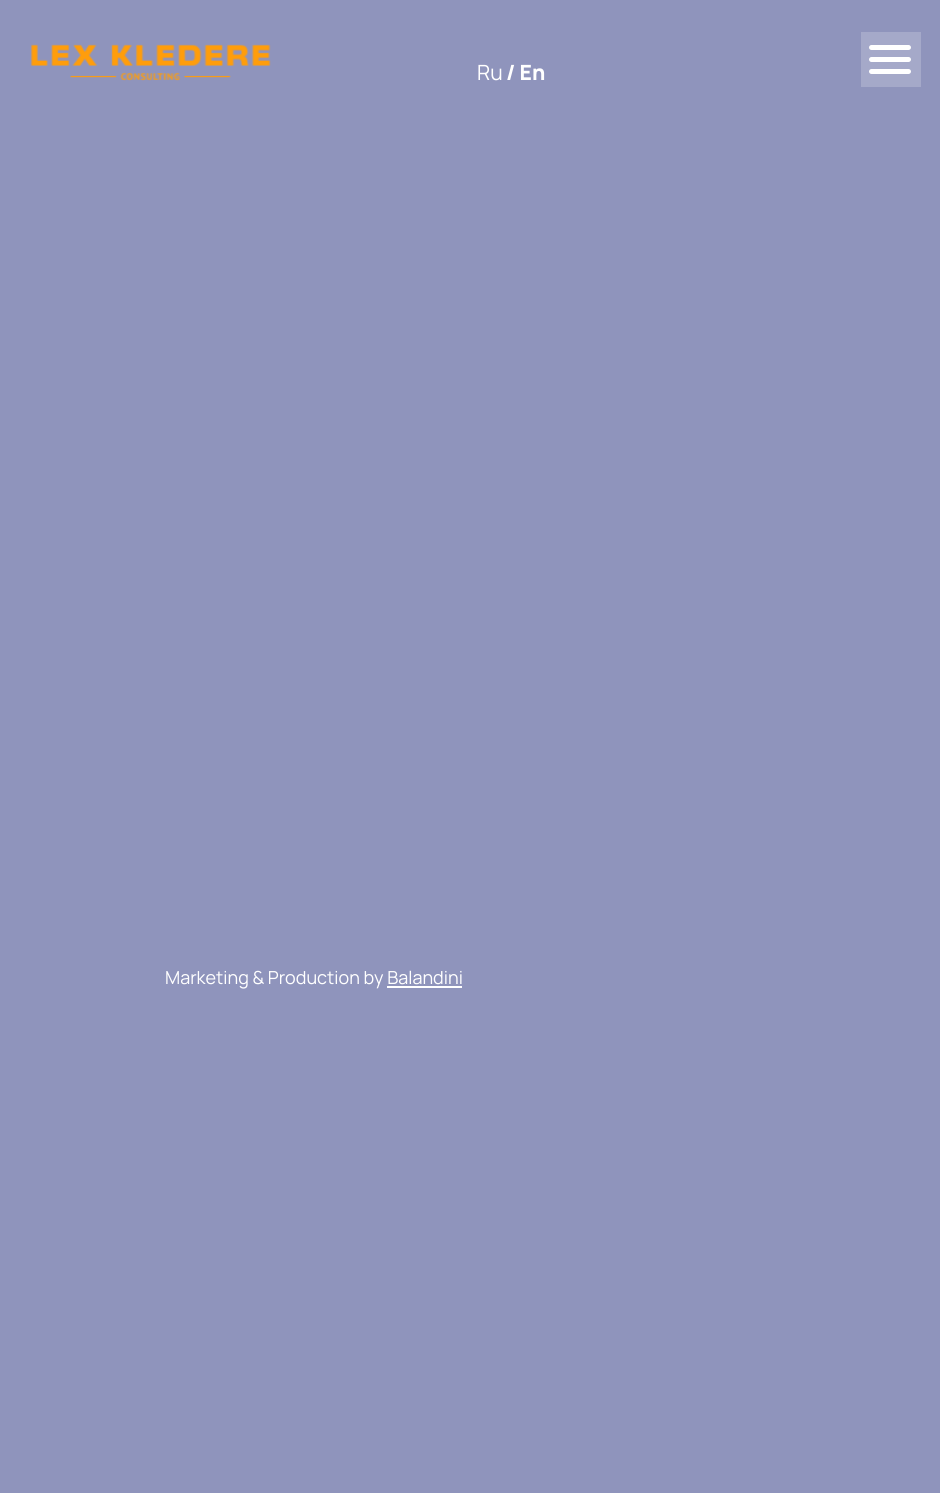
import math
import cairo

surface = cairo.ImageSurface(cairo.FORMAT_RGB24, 940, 1493)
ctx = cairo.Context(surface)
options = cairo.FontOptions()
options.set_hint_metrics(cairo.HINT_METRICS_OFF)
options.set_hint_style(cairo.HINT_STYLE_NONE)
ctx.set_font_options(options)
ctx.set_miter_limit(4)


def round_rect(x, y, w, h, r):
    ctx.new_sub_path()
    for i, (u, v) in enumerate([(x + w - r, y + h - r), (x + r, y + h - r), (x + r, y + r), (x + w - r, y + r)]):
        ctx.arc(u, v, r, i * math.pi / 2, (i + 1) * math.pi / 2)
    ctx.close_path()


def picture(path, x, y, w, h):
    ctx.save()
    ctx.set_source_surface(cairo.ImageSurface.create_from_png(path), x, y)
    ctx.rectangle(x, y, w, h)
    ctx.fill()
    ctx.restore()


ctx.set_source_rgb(0.561, 0.58, 0.737)
ctx.paint()
picture("img1.png", 31, 44, 240, 37)
ctx.set_source_rgb(0.647, 0.663, 0.788)
ctx.rectangle(861, 32, 60, 55)
ctx.fill()
ctx.set_source_rgb(1, 1, 1)
round_rect(869, 45, 42, 5, 2.5)
ctx.fill()
round_rect(869, 57, 42, 5, 2.5)
ctx.fill()
round_rect(869, 69, 42, 5, 2.5)
ctx.fill()
ctx.select_font_face("Manrope")
ctx.set_font_size(21)
ctx.move_to(477, 80)
ctx.show_text("Ru")
ctx.select_font_face("Manrope ExtraBold")
ctx.move_to(506, 80)
ctx.show_text("/ En")
ctx.select_font_face("Manrope")
ctx.set_font_size(18)
ctx.move_to(165, 984)
ctx.show_text("Marketing & Production by Balandini")
ctx.rectangle(387, 986, 75, 2)
ctx.fill()
surface.write_to_png("page.png")
